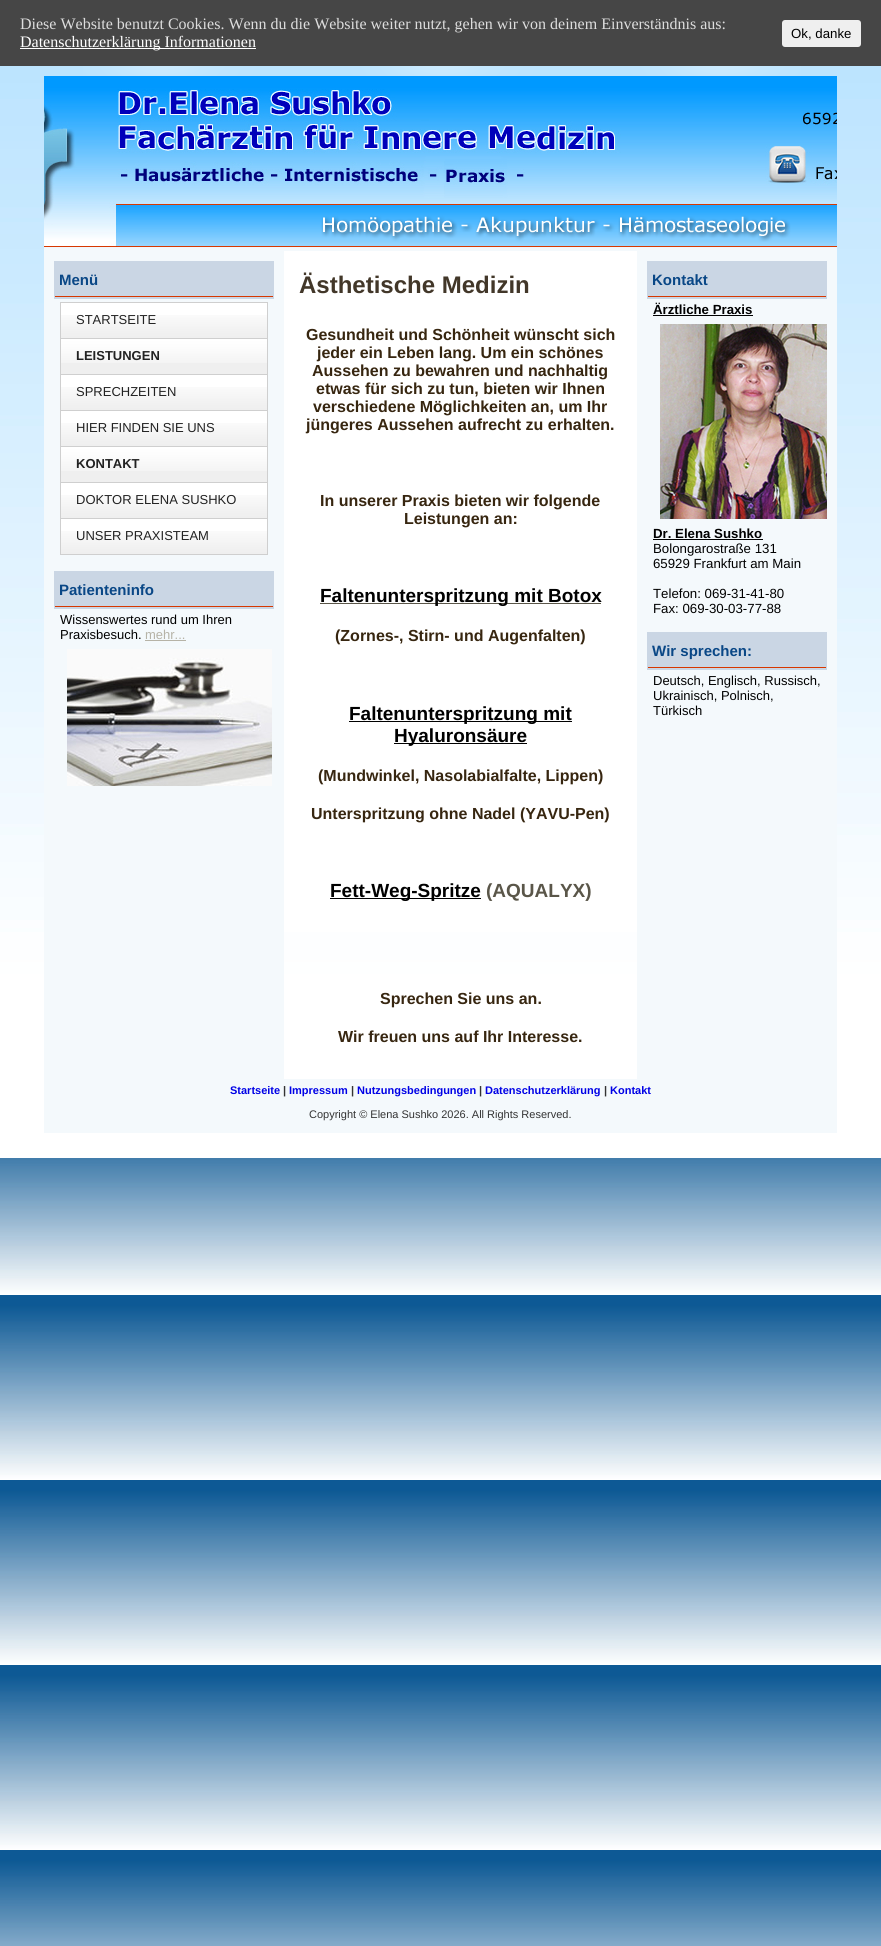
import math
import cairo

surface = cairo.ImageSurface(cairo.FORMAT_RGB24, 881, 1946)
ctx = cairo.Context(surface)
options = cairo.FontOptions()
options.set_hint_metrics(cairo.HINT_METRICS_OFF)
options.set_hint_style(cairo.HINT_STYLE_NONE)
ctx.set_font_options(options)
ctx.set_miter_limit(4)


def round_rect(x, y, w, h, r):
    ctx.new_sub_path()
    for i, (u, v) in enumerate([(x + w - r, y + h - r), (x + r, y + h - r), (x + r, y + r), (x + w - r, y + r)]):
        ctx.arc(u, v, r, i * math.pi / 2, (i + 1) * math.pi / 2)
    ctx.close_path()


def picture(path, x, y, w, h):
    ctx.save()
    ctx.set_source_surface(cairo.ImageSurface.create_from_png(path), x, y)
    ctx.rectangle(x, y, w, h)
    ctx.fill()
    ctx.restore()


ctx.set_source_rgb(1, 1, 1)
ctx.paint()
picture("img1.png", 0, 1158, 881, 788)
ctx.set_source_rgb(0.275, 0.275, 0.275)
ctx.rectangle(0, 0, 881, 66)
ctx.fill()
ctx.select_font_face("Liberation Serif")
ctx.set_font_size(16)
ctx.set_source_rgb(0.867, 0.867, 0.867)
ctx.move_to(20, 29)
ctx.show_text("Diese Website benutzt Cookies. Wenn du die Website weiter nutzt, gehen wir von deinem Einverständnis aus:")
ctx.set_source_rgb(1, 1, 1)
ctx.rectangle(20, 48, 236, 1)
ctx.fill()
ctx.move_to(20, 47)
ctx.show_text("Datenschutzerklärung Informationen")
ctx.set_source_rgb(0.937, 0.937, 0.937)
round_rect(782, 20, 79, 27, 3)
ctx.fill()
ctx.select_font_face("Liberation Sans")
ctx.set_font_size(13.25)
ctx.set_source_rgb(0, 0, 0)
ctx.move_to(791, 38)
ctx.show_text("Ok, danke")
picture("img2.png", 0, 66, 881, 1092)
picture("img3.png", 83, 66, 718, 10)
ctx.set_source_rgb(1, 1, 1)
ctx.rectangle(284, 251, 353, 681)
ctx.fill()
picture("img4.png", 44, 76, 793, 175)
picture("img5.png", 44, 89, 793, 158)
ctx.set_source_rgb(0.957, 0.976, 0.988)
ctx.rectangle(44, 251, 240, 828)
ctx.fill()
ctx.set_source_rgb(0.792, 0.839, 0.894)
ctx.rectangle(54, 261, 220, 38)
ctx.fill()
ctx.select_font_face("Liberation Sans", cairo.FONT_SLANT_NORMAL, cairo.FONT_WEIGHT_BOLD)
ctx.set_font_size(15)
ctx.set_source_rgb(0.039, 0.278, 0.525)
ctx.move_to(59, 285)
ctx.show_text("Menü")
ctx.set_source_rgb(0.843, 0.22, 0.004)
ctx.rectangle(55, 296, 218, 1)
ctx.fill()
ctx.set_source_rgb(0.812, 0.812, 0.812)
ctx.rectangle(60, 302, 208, 1)
ctx.fill()
ctx.rectangle(267, 302, 1, 253)
ctx.fill()
ctx.rectangle(60, 302, 1, 253)
ctx.fill()
ctx.set_source_rgb(1, 1, 1)
ctx.rectangle(61, 303, 206, 12)
ctx.fill()
picture("img6.png", 61, 315, 206, 23)
ctx.set_source_rgb(0.812, 0.812, 0.812)
ctx.rectangle(61, 338, 206, 1)
ctx.fill()
ctx.select_font_face("Liberation Sans")
ctx.set_font_size(13)
ctx.set_source_rgb(0.133, 0.133, 0.133)
ctx.move_to(76, 324)
ctx.show_text("STARTSEITE")
ctx.set_source_rgb(0.937, 0.937, 0.937)
ctx.rectangle(61, 363, 206, 11)
ctx.fill()
picture("img7.png", 61, 339, 206, 24)
ctx.set_source_rgb(0.812, 0.812, 0.812)
ctx.rectangle(61, 374, 206, 1)
ctx.fill()
ctx.select_font_face("Liberation Sans", cairo.FONT_SLANT_NORMAL, cairo.FONT_WEIGHT_BOLD)
ctx.set_source_rgb(0.133, 0.133, 0.133)
ctx.move_to(76, 360)
ctx.show_text("LEISTUNGEN")
ctx.set_source_rgb(1, 1, 1)
ctx.rectangle(61, 375, 206, 12)
ctx.fill()
picture("img6.png", 61, 387, 206, 23)
ctx.set_source_rgb(0.812, 0.812, 0.812)
ctx.rectangle(61, 410, 206, 1)
ctx.fill()
ctx.select_font_face("Liberation Sans")
ctx.set_source_rgb(0.133, 0.133, 0.133)
ctx.move_to(76, 396)
ctx.show_text("SPRECHZEITEN")
ctx.set_source_rgb(1, 1, 1)
ctx.rectangle(61, 411, 206, 12)
ctx.fill()
picture("img6.png", 61, 423, 206, 23)
ctx.set_source_rgb(0.812, 0.812, 0.812)
ctx.rectangle(61, 446, 206, 1)
ctx.fill()
ctx.set_source_rgb(0.133, 0.133, 0.133)
ctx.move_to(76, 432)
ctx.show_text("HIER FINDEN SIE UNS")
ctx.set_source_rgb(0.937, 0.937, 0.937)
ctx.rectangle(61, 471, 206, 11)
ctx.fill()
picture("img7.png", 61, 447, 206, 24)
ctx.set_source_rgb(0.812, 0.812, 0.812)
ctx.rectangle(61, 482, 206, 1)
ctx.fill()
ctx.select_font_face("Liberation Sans", cairo.FONT_SLANT_NORMAL, cairo.FONT_WEIGHT_BOLD)
ctx.set_source_rgb(0.133, 0.133, 0.133)
ctx.move_to(76, 468)
ctx.show_text("KONTAKT")
ctx.set_source_rgb(1, 1, 1)
ctx.rectangle(61, 483, 206, 12)
ctx.fill()
picture("img6.png", 61, 495, 206, 23)
ctx.set_source_rgb(0.812, 0.812, 0.812)
ctx.rectangle(61, 518, 206, 1)
ctx.fill()
ctx.select_font_face("Liberation Sans")
ctx.set_source_rgb(0.133, 0.133, 0.133)
ctx.move_to(76, 504)
ctx.show_text("DOKTOR ELENA SUSHKO")
ctx.set_source_rgb(1, 1, 1)
ctx.rectangle(61, 519, 206, 12)
ctx.fill()
picture("img6.png", 61, 531, 206, 23)
ctx.set_source_rgb(0.812, 0.812, 0.812)
ctx.rectangle(61, 554, 206, 1)
ctx.fill()
ctx.set_source_rgb(0.133, 0.133, 0.133)
ctx.move_to(76, 540)
ctx.show_text("UNSER PRAXISTEAM")
ctx.set_source_rgb(0.792, 0.839, 0.894)
ctx.rectangle(54, 571, 220, 38)
ctx.fill()
ctx.select_font_face("Liberation Sans", cairo.FONT_SLANT_NORMAL, cairo.FONT_WEIGHT_BOLD)
ctx.set_font_size(15)
ctx.set_source_rgb(0.039, 0.278, 0.525)
ctx.move_to(59, 595)
ctx.show_text("Patienteninfo")
ctx.set_source_rgb(0.843, 0.22, 0.004)
ctx.rectangle(55, 606, 218, 1)
ctx.fill()
ctx.select_font_face("Liberation Sans")
ctx.set_font_size(13)
ctx.set_source_rgb(0, 0, 0)
ctx.move_to(60, 624)
ctx.show_text("Wissenswertes rund um Ihren")
ctx.move_to(60, 639)
ctx.show_text("Praxisbesuch.")
ctx.set_source_rgb(0.714, 0.702, 0.655)
ctx.move_to(145, 639)
ctx.show_text("mehr...")
ctx.rectangle(145, 640, 41, 1)
ctx.fill()
picture("img8.png", 67, 649, 205, 137)
ctx.select_font_face("Liberation Sans", cairo.FONT_SLANT_NORMAL, cairo.FONT_WEIGHT_BOLD)
ctx.set_font_size(24)
ctx.set_source_rgb(0.259, 0.216, 0.161)
ctx.move_to(299, 293)
ctx.show_text("Ästhetische Medizin")
ctx.set_font_size(16)
ctx.set_source_rgb(0.216, 0.149, 0.063)
ctx.move_to(306, 340)
ctx.show_text("Gesundheit und Schönheit wünscht sich")
ctx.move_to(317, 358)
ctx.show_text("jeder ein Leben lang. Um ein schönes")
ctx.move_to(312, 376)
ctx.show_text("Aussehen zu bewahren und nachhaltig")
ctx.move_to(316, 394)
ctx.show_text("etwas für sich zu tun, bieten wir Ihnen")
ctx.move_to(313, 412)
ctx.show_text("verschiedene Möglichkeiten an, um Ihr")
ctx.move_to(306, 430)
ctx.show_text("jüngeres Aussehen aufrecht zu erhalten.")
ctx.move_to(320, 506)
ctx.show_text("In unserer Praxis bieten wir folgende")
ctx.move_to(404, 524)
ctx.show_text("Leistungen an:")
ctx.set_source_rgb(0.353, 0.337, 0.286)
ctx.rectangle(320, 603, 281, 1)
ctx.fill()
ctx.set_font_size(19)
ctx.set_source_rgb(0, 0, 0)
ctx.move_to(320, 602)
ctx.show_text("Faltenunterspritzung mit Botox")
ctx.set_font_size(16)
ctx.set_source_rgb(0.216, 0.149, 0.063)
ctx.move_to(335, 641)
ctx.show_text("(Zornes-, Stirn- und Augenfalten)")
ctx.set_source_rgb(0, 0, 0)
ctx.rectangle(349, 721, 223, 1)
ctx.fill()
ctx.set_font_size(19)
ctx.move_to(349, 720)
ctx.show_text("Faltenunterspritzung mit")
ctx.rectangle(394, 743, 133, 1)
ctx.fill()
ctx.move_to(394, 742)
ctx.show_text("Hyaluronsäure")
ctx.set_font_size(16)
ctx.set_source_rgb(0.216, 0.149, 0.063)
ctx.move_to(318, 781)
ctx.show_text("(Mundwinkel, Nasolabialfalte, Lippen)")
ctx.move_to(311, 819)
ctx.show_text("Unterspritzung ohne Nadel (YAVU-Pen)")
ctx.set_source_rgb(0, 0, 0)
ctx.rectangle(330, 898, 151, 1)
ctx.fill()
ctx.set_font_size(19)
ctx.move_to(330, 897)
ctx.show_text("Fett-Weg-Spritze")
ctx.set_source_rgb(0.353, 0.337, 0.286)
ctx.move_to(486, 897)
ctx.show_text("(AQUALYX)")
ctx.set_font_size(16)
ctx.set_source_rgb(0.216, 0.149, 0.063)
ctx.move_to(380, 1004)
ctx.show_text("Sprechen Sie uns an.")
ctx.move_to(338, 1042)
ctx.show_text("Wir freuen uns auf Ihr Interesse.")
ctx.set_source_rgb(0.957, 0.976, 0.988)
ctx.rectangle(637, 251, 200, 828)
ctx.fill()
ctx.set_source_rgb(0.792, 0.839, 0.894)
ctx.rectangle(647, 261, 180, 38)
ctx.fill()
ctx.set_font_size(15)
ctx.set_source_rgb(0.039, 0.278, 0.525)
ctx.move_to(652, 285)
ctx.show_text("Kontakt")
ctx.set_source_rgb(0.843, 0.22, 0.004)
ctx.rectangle(648, 296, 178, 1)
ctx.fill()
ctx.set_font_size(13.25)
ctx.set_source_rgb(0, 0, 0)
ctx.move_to(653, 314)
ctx.show_text("Ärztliche Praxis")
ctx.rectangle(653, 315, 100, 1)
ctx.fill()
picture("img9.png", 660, 324, 167, 195)
ctx.move_to(653, 538)
ctx.show_text("Dr. Elena Sushko")
ctx.rectangle(653, 539, 110, 1)
ctx.fill()
ctx.select_font_face("Liberation Sans")
ctx.move_to(653, 553)
ctx.show_text("Bolongarostraße 131")
ctx.move_to(653, 568)
ctx.show_text("65929 Frankfurt am Main")
ctx.move_to(653, 598)
ctx.show_text("Telefon: 069-31-41-80")
ctx.move_to(653, 613)
ctx.show_text("Fax: 069-30-03-77-88")
ctx.set_source_rgb(0.792, 0.839, 0.894)
ctx.rectangle(647, 632, 180, 38)
ctx.fill()
ctx.select_font_face("Liberation Sans", cairo.FONT_SLANT_NORMAL, cairo.FONT_WEIGHT_BOLD)
ctx.set_font_size(15)
ctx.set_source_rgb(0.039, 0.278, 0.525)
ctx.move_to(652, 656)
ctx.show_text("Wir sprechen:")
ctx.set_source_rgb(0.843, 0.22, 0.004)
ctx.rectangle(648, 667, 178, 1)
ctx.fill()
ctx.select_font_face("Liberation Sans")
ctx.set_font_size(13)
ctx.set_source_rgb(0, 0, 0)
ctx.move_to(653, 685)
ctx.show_text("Deutsch, Englisch, Russisch,")
ctx.move_to(653, 700)
ctx.show_text("Ukrainisch, Polnisch,")
ctx.move_to(653, 715)
ctx.show_text("Türkisch")
ctx.set_source_rgb(0.957, 0.976, 0.988)
ctx.rectangle(44, 1079, 793, 54)
ctx.fill()
ctx.select_font_face("Liberation Sans", cairo.FONT_SLANT_NORMAL, cairo.FONT_WEIGHT_BOLD)
ctx.set_font_size(11)
ctx.set_source_rgb(0, 0.004, 0.902)
ctx.move_to(230, 1094)
ctx.show_text("Startseite")
ctx.set_source_rgb(0.2, 0.2, 0.2)
ctx.move_to(283, 1094)
ctx.show_text("|")
ctx.set_source_rgb(0, 0.004, 0.902)
ctx.move_to(289, 1094)
ctx.show_text("Impressum")
ctx.set_source_rgb(0.2, 0.2, 0.2)
ctx.move_to(351, 1094)
ctx.show_text("|")
ctx.set_source_rgb(0, 0.004, 0.902)
ctx.move_to(357, 1094)
ctx.show_text("Nutzungsbedingungen")
ctx.set_source_rgb(0.2, 0.2, 0.2)
ctx.move_to(479, 1094)
ctx.show_text("|")
ctx.set_source_rgb(0, 0.004, 0.902)
ctx.move_to(485, 1094)
ctx.show_text("Datenschutzerklärung")
ctx.set_source_rgb(0.2, 0.2, 0.2)
ctx.move_to(604, 1094)
ctx.show_text("|")
ctx.set_source_rgb(0, 0.004, 0.902)
ctx.move_to(610, 1094)
ctx.show_text("Kontakt")
ctx.select_font_face("Liberation Sans")
ctx.set_source_rgb(0.2, 0.2, 0.2)
ctx.move_to(309, 1118)
ctx.show_text("Copyright © Elena Sushko 2026. All Rights Reserved.")
surface.write_to_png("page.png")
